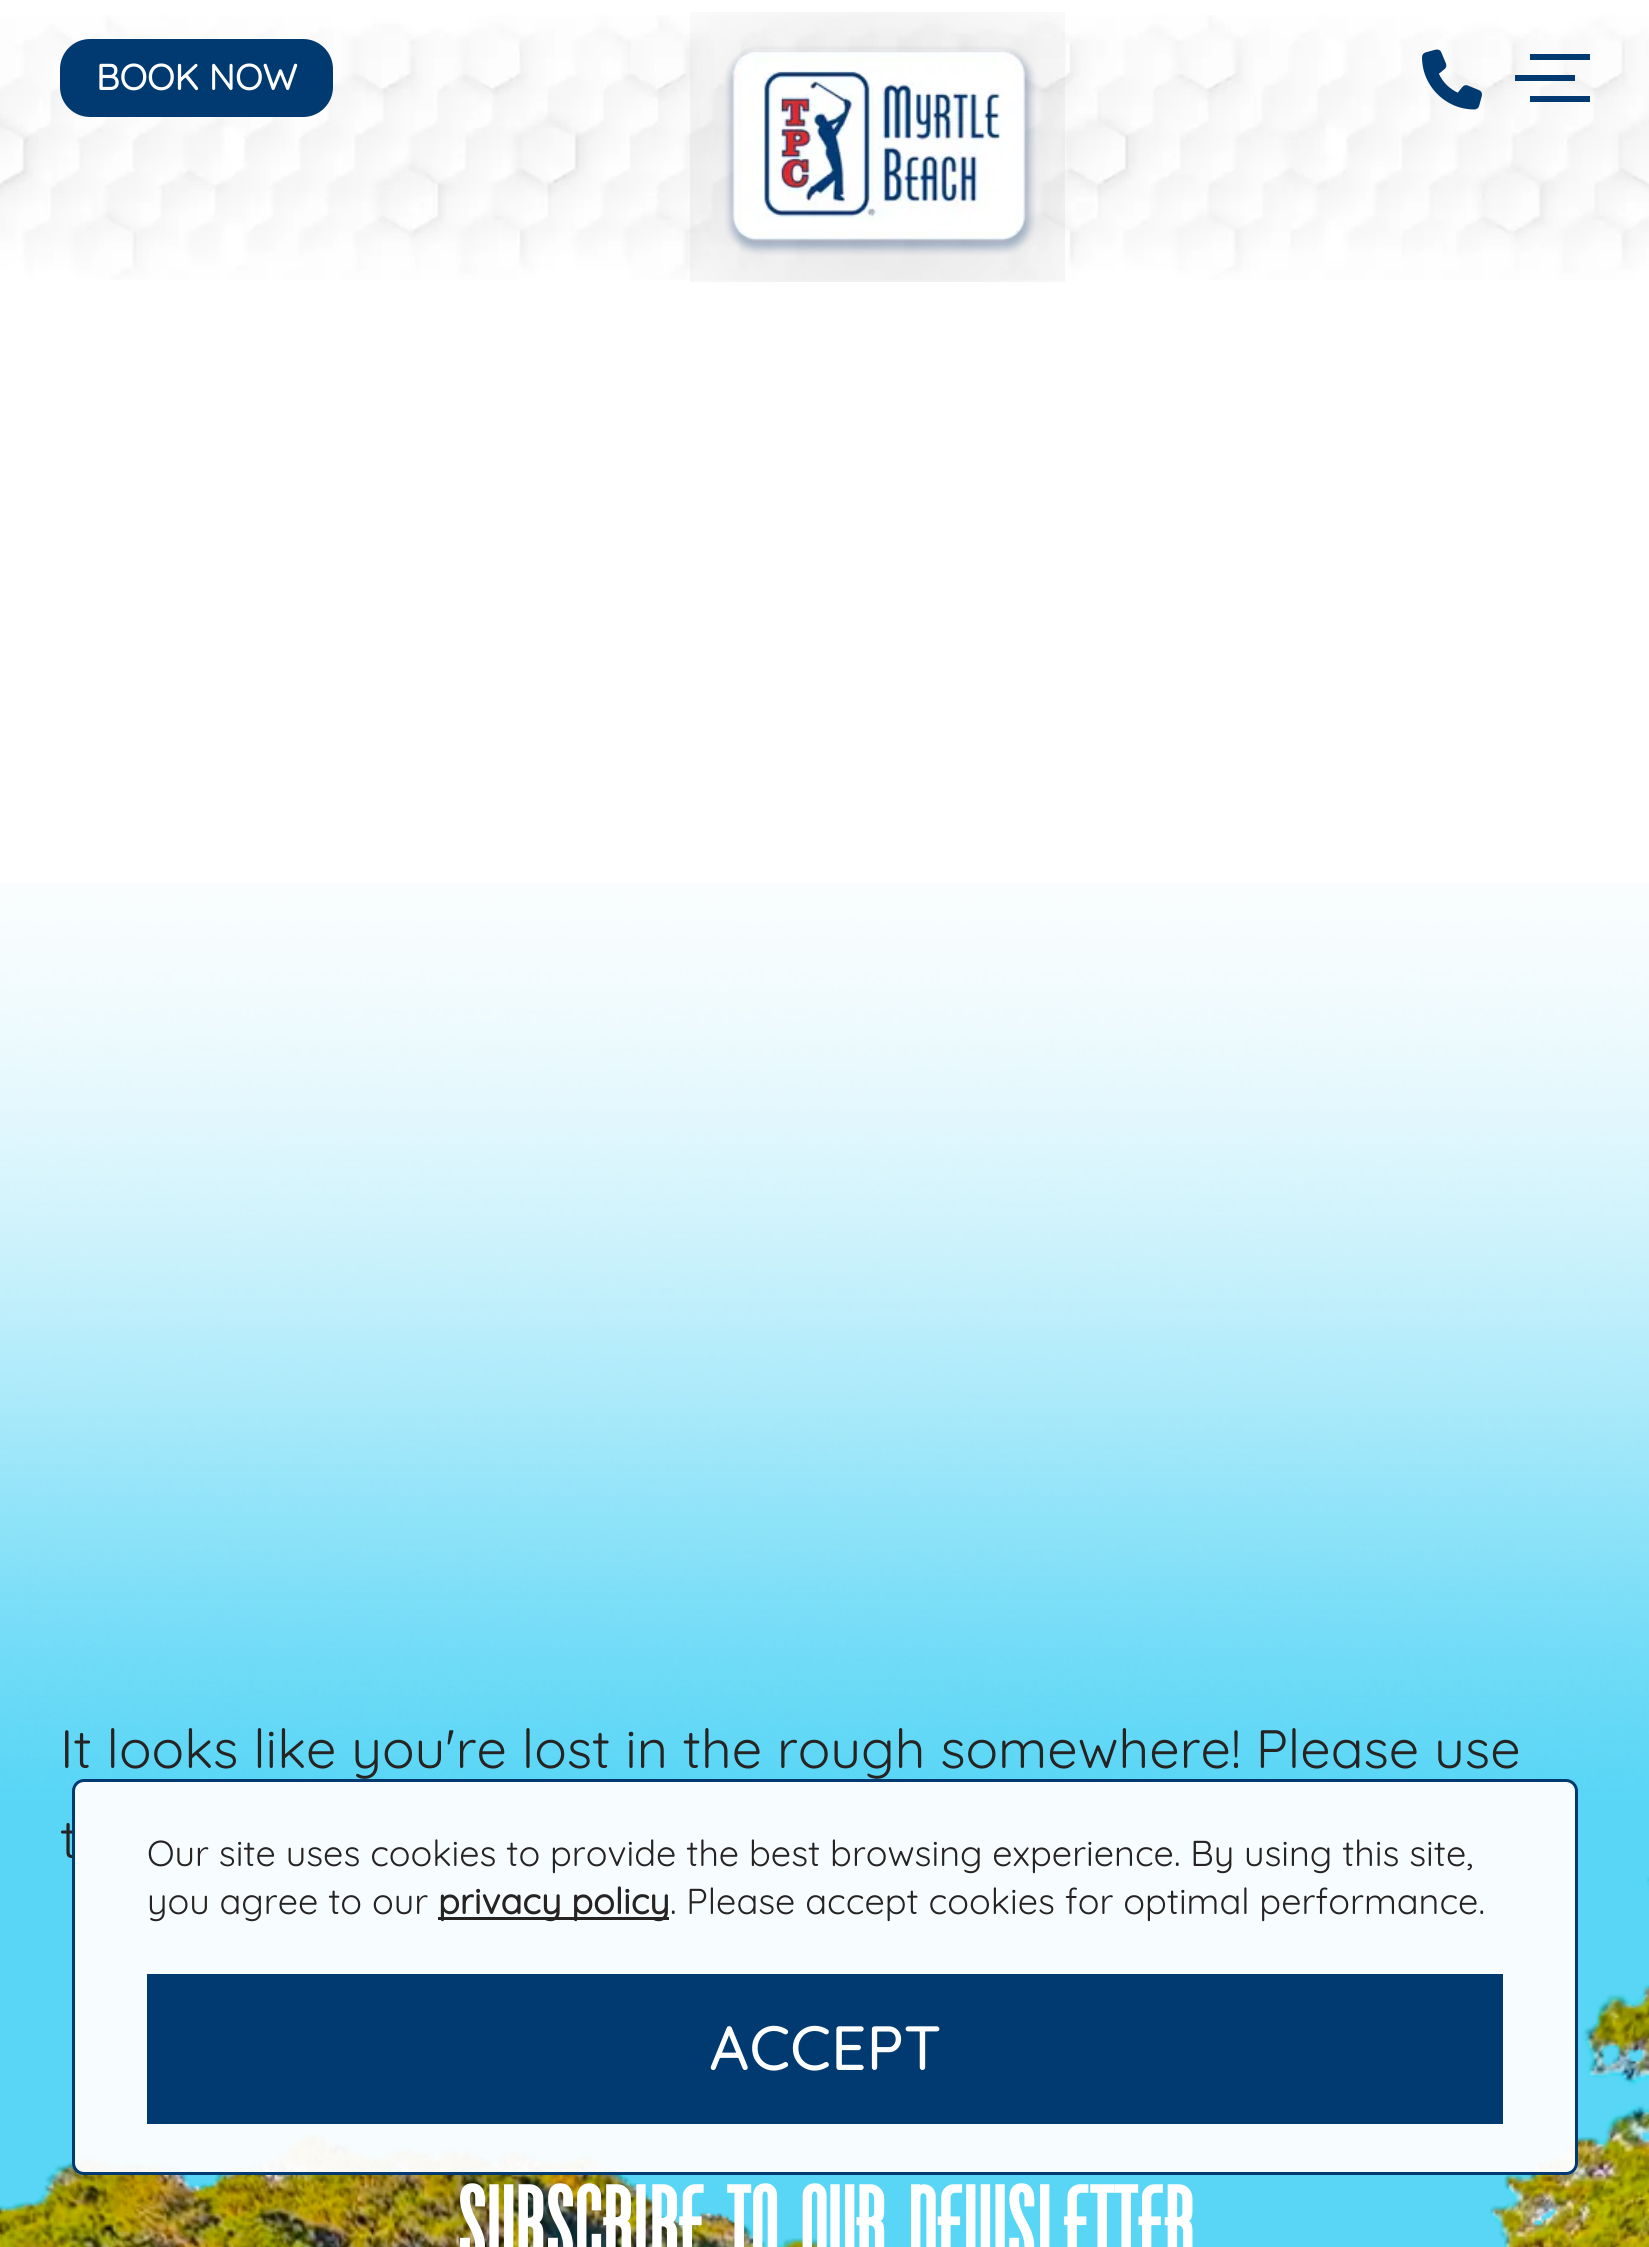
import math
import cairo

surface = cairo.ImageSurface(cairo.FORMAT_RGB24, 1649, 2247)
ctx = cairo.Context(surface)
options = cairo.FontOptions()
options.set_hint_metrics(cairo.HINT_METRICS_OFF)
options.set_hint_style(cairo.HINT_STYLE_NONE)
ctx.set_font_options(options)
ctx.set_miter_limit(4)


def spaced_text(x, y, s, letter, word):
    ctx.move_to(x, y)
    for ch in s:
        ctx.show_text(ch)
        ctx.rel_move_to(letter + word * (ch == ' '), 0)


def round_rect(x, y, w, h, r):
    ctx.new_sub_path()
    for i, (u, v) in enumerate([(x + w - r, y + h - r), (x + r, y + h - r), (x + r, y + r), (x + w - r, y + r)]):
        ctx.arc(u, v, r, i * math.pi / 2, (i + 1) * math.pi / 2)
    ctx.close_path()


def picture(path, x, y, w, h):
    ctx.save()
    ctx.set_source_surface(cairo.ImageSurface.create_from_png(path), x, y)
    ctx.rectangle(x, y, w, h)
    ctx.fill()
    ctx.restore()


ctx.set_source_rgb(1, 1, 1)
ctx.paint()
picture("img1.png", 0, 15, 1649, 265)
ctx.set_source_rgb(0, 0.227, 0.439)
round_rect(60, 39, 273, 78, 30)
ctx.fill()
ctx.select_font_face("Quicksand", cairo.FONT_SLANT_NORMAL, cairo.FONT_WEIGHT_BOLD)
ctx.set_font_size(36)
ctx.set_source_rgb(1, 1, 1)
ctx.move_to(96, 90)
ctx.show_text("BOOK NOW")
picture("img2.png", 690, 12, 375, 270)
picture("img3.png", 1422, 49, 60, 61)
ctx.set_source_rgb(0, 0.227, 0.439)
ctx.rectangle(1530, 54, 60, 6)
ctx.fill()
ctx.rectangle(1515, 75, 60, 6)
ctx.fill()
ctx.rectangle(1530, 96, 60, 6)
ctx.fill()
picture("img4.png", 0, 883, 1649, 1364)
ctx.select_font_face("Quicksand Light")
ctx.set_font_size(54)
ctx.set_source_rgb(0.149, 0.137, 0.137)
ctx.move_to(60, 1768)
ctx.show_text("It looks like you're lost in the rough somewhere! Please use")
ctx.move_to(60, 1858)
ctx.show_text("t")
ctx.set_source_rgba(1, 1, 1, 0.95)
round_rect(72, 1779, 1506, 396, 18)
ctx.fill()
round_rect(73.5, 1780.5, 1503, 393, 10.5)
ctx.set_source_rgb(0, 0.227, 0.439)
ctx.set_line_width(3)
ctx.stroke()
ctx.set_font_size(36)
ctx.set_source_rgb(0.149, 0.137, 0.137)
ctx.move_to(147, 1866)
ctx.show_text("Our site uses cookies to provide the best browsing experience. By using this site,")
ctx.move_to(147, 1914)
ctx.show_text("you agree to our")
ctx.rectangle(438, 1917, 231, 3)
ctx.fill()
ctx.select_font_face("Quicksand", cairo.FONT_SLANT_NORMAL, cairo.FONT_WEIGHT_BOLD)
ctx.move_to(438, 1914)
ctx.show_text("privacy policy")
ctx.select_font_face("Quicksand Light")
ctx.move_to(670, 1914)
ctx.show_text(". Please accept cookies for optimal performance.")
ctx.set_source_rgb(0, 0.227, 0.439)
ctx.rectangle(147, 1974, 1356, 150)
ctx.fill()
ctx.select_font_face("Quicksand", cairo.FONT_SLANT_NORMAL, cairo.FONT_WEIGHT_BOLD)
ctx.set_font_size(60)
ctx.set_source_rgb(1, 1, 1)
spaced_text(709, 2070, "ACCEPT", 1.5, 0)
ctx.select_font_face("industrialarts", cairo.FONT_SLANT_NORMAL, cairo.FONT_WEIGHT_BOLD)
ctx.set_font_size(96)
ctx.move_to(456, 2260)
ctx.show_text("SUBSCRIBE TO OUR NEWSLETTER")
surface.write_to_png("page.png")
